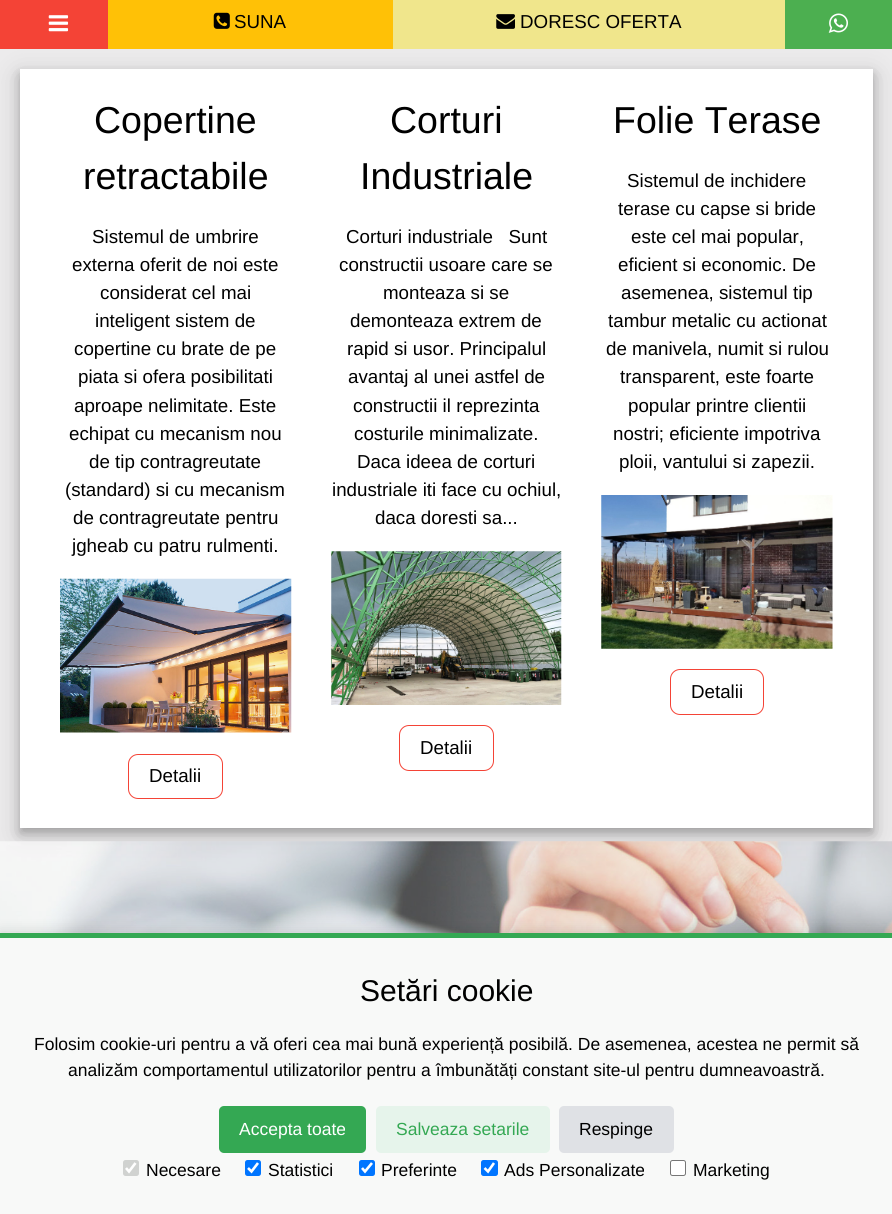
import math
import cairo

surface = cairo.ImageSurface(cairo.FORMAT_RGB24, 892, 1214)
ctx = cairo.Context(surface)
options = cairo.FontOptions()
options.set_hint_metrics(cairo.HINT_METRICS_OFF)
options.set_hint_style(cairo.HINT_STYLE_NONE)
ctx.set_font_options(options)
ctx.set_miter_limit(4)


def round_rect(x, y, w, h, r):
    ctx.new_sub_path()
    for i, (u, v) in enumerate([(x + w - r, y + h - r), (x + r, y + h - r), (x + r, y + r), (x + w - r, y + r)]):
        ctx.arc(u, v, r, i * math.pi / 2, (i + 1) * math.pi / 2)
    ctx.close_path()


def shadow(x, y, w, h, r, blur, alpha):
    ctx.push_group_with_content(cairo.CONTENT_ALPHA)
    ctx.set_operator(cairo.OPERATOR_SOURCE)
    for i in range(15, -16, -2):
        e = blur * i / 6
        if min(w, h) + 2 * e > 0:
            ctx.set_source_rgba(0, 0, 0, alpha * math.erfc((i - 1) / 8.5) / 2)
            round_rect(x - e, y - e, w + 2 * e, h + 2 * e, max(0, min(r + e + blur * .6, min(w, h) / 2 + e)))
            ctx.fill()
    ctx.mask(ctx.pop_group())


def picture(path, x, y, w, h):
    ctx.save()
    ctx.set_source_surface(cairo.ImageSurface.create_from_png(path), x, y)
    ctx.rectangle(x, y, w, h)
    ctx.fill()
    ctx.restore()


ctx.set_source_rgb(0.922, 0.918, 0.922)
ctx.paint()
ctx.set_source_rgb(0, 0, 0)
shadow(20, 76, 853, 759, 0, 12.5, 0.19)
ctx.set_source_rgb(0.957, 0.263, 0.212)
ctx.rectangle(0, 0, 108, 49)
ctx.fill()
picture("img1.png", 48, 15, 21, 17)
ctx.set_source_rgb(1, 0.757, 0.027)
ctx.rectangle(108, 0, 285, 49)
ctx.fill()
picture("img2.png", 213, 12, 17, 17)
ctx.select_font_face("Liberation Sans")
ctx.set_font_size(18.75)
ctx.set_source_rgb(0, 0, 0)
ctx.move_to(234, 28)
ctx.show_text("SUNA")
ctx.set_source_rgb(0.941, 0.902, 0.549)
ctx.rectangle(393, 0, 392, 49)
ctx.fill()
picture("img3.png", 496, 14, 19, 15)
ctx.set_source_rgb(0, 0, 0)
ctx.move_to(520, 28)
ctx.show_text("DORESC OFERTA")
ctx.set_source_rgb(0.298, 0.686, 0.314)
ctx.rectangle(785, 0, 107, 49)
ctx.fill()
picture("img4.png", 828, 13, 20, 20)
ctx.set_source_rgb(0, 0, 0)
shadow(20, 74, 853, 759, 0, 5, 0.2)
ctx.set_source_rgb(1, 1, 1)
ctx.rectangle(20, 69, 853, 759)
ctx.fill()
ctx.set_font_size(37.5)
ctx.set_source_rgb(0, 0, 0)
ctx.move_to(94, 133)
ctx.show_text("Copertine")
ctx.move_to(83, 189)
ctx.show_text("retractabile")
ctx.set_font_size(18.75)
ctx.move_to(92, 243)
ctx.show_text("Sistemul de umbrire")
ctx.move_to(72, 271)
ctx.show_text("externa oferit de noi este")
ctx.move_to(100, 299)
ctx.show_text("considerat cel mai")
ctx.move_to(95, 327)
ctx.show_text("inteligent sistem de")
ctx.move_to(74, 355)
ctx.show_text("copertine cu brate de pe")
ctx.move_to(78, 383)
ctx.show_text("piata si ofera posibilitati")
ctx.move_to(74, 412)
ctx.show_text("aproape nelimitate. Este")
ctx.move_to(69, 440)
ctx.show_text("echipat cu mecanism nou")
ctx.move_to(89, 468)
ctx.show_text("de tip contragreutate")
ctx.move_to(65, 496)
ctx.show_text("(standard) si cu mecanism")
ctx.move_to(73, 524)
ctx.show_text("de contragreutate pentru")
ctx.move_to(72, 552)
ctx.show_text("jgheab cu patru rulmenti.")
picture("img5.png", 60, 578, 232, 155)
round_rect(128.5, 754.5, 94, 44, 9.5)
ctx.set_source_rgb(0.957, 0.263, 0.212)
ctx.set_line_width(1)
ctx.stroke()
ctx.set_source_rgb(0, 0, 0)
ctx.move_to(149, 782)
ctx.show_text("Detalii")
ctx.set_font_size(37.5)
ctx.move_to(390, 133)
ctx.show_text("Corturi")
ctx.move_to(360, 189)
ctx.show_text("Industriale")
ctx.set_font_size(18.75)
ctx.move_to(346, 243)
ctx.show_text("Corturi industriale   Sunt")
ctx.move_to(339, 271)
ctx.show_text("constructii usoare care se")
ctx.move_to(383, 299)
ctx.show_text("monteaza si se")
ctx.move_to(350, 327)
ctx.show_text("demonteaza extrem de")
ctx.move_to(347, 355)
ctx.show_text("rapid si usor. Principalul")
ctx.move_to(348, 383)
ctx.show_text("avantaj al unei astfel de")
ctx.move_to(353, 412)
ctx.show_text("constructii il reprezinta")
ctx.move_to(354, 440)
ctx.show_text("costurile minimalizate.")
ctx.move_to(357, 468)
ctx.show_text("Daca ideea de corturi")
ctx.move_to(332, 496)
ctx.show_text("industriale iti face cu ochiul,")
ctx.move_to(375, 524)
ctx.show_text("daca doresti sa...")
picture("img6.png", 331, 551, 231, 154)
round_rect(399.5, 725.5, 94, 45, 9.5)
ctx.set_source_rgb(0.957, 0.263, 0.212)
ctx.stroke()
ctx.set_source_rgb(0, 0, 0)
ctx.move_to(420, 754)
ctx.show_text("Detalii")
ctx.set_font_size(37.5)
ctx.move_to(613, 133)
ctx.show_text("Folie Terase")
ctx.set_font_size(18.75)
ctx.move_to(627, 187)
ctx.show_text("Sistemul de inchidere")
ctx.move_to(618, 215)
ctx.show_text("terase cu capse si bride")
ctx.move_to(631, 243)
ctx.show_text("este cel mai popular,")
ctx.move_to(618, 271)
ctx.show_text("eficient si economic. De")
ctx.move_to(621, 299)
ctx.show_text("asemenea, sistemul tip")
ctx.move_to(608, 327)
ctx.show_text("tambur metalic cu actionat")
ctx.move_to(606, 355)
ctx.show_text("de manivela, numit si rulou")
ctx.move_to(620, 383)
ctx.show_text("transparent, este foarte")
ctx.move_to(628, 412)
ctx.show_text("popular printre clientii")
ctx.move_to(613, 440)
ctx.show_text("nostri; eficiente impotriva")
ctx.move_to(619, 468)
ctx.show_text("ploii, vantului si zapezii.")
picture("img7.png", 601, 495, 232, 154)
round_rect(670.5, 669.5, 93, 45, 9.5)
ctx.set_source_rgb(0.957, 0.263, 0.212)
ctx.stroke()
ctx.set_source_rgb(0, 0, 0)
ctx.move_to(691, 698)
ctx.show_text("Detalii")
picture("img8.png", 0, 841, 892, 92)
ctx.set_source_rgb(0, 0, 0)
shadow(0, 930, 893, 283, 0, 6, 0.1)
ctx.set_source_rgb(0.969, 0.976, 0.969)
ctx.rectangle(0, 938, 892, 276)
ctx.fill()
ctx.set_source_rgb(0.204, 0.659, 0.325)
ctx.rectangle(0, 933, 892, 5)
ctx.fill()
ctx.set_font_size(30)
ctx.set_source_rgb(0, 0, 0)
ctx.move_to(360, 1001)
ctx.show_text("Setări cookie")
ctx.set_font_size(17.5)
ctx.move_to(34, 1050)
ctx.show_text("Folosim cookie-uri pentru a vă oferi cea mai bună experiență posibilă. De asemenea, acestea ne permit să")
ctx.move_to(68, 1076)
ctx.show_text("analizăm comportamentul utilizatorilor pentru a îmbunătăți constant site-ul pentru dumneavoastră.")
ctx.set_source_rgb(0.204, 0.659, 0.325)
round_rect(219, 1106, 147, 47, 5)
ctx.fill()
ctx.set_source_rgb(1, 1, 1)
ctx.move_to(239, 1135)
ctx.show_text("Accepta toate")
ctx.set_source_rgb(0.902, 0.957, 0.918)
round_rect(376, 1106, 174, 47, 5)
ctx.fill()
ctx.set_source_rgb(0.204, 0.659, 0.325)
ctx.move_to(396, 1135)
ctx.show_text("Salveaza setarile")
ctx.set_source_rgb(0.875, 0.882, 0.898)
round_rect(559, 1106, 115, 47, 5)
ctx.fill()
ctx.set_source_rgb(0, 0, 0)
ctx.move_to(579, 1135)
ctx.show_text("Respinge")
ctx.set_source_rgb(0.816, 0.824, 0.816)
round_rect(123, 1160, 16, 16, 2.5)
ctx.fill()
ctx.new_path()
ctx.move_to(126, 1168)
ctx.line_to(129, 1171.5)
ctx.line_to(135.5, 1163)
ctx.set_source_rgb(1, 1, 1)
ctx.set_line_width(2.6)
ctx.stroke()
ctx.set_source_rgb(0, 0, 0)
ctx.move_to(146, 1176)
ctx.show_text("Necesare")
ctx.set_source_rgb(0, 0.459, 1)
round_rect(245, 1160, 16, 16, 2.5)
ctx.fill()
ctx.new_path()
ctx.move_to(248, 1168)
ctx.line_to(251.5, 1171.5)
ctx.line_to(258, 1163)
ctx.set_source_rgb(1, 1, 1)
ctx.stroke()
ctx.set_source_rgb(0, 0, 0)
ctx.move_to(268, 1176)
ctx.show_text("Statistici")
ctx.set_source_rgb(0, 0.459, 1)
round_rect(359, 1160, 16, 16, 2.5)
ctx.fill()
ctx.new_path()
ctx.move_to(362, 1168)
ctx.line_to(365, 1171.5)
ctx.line_to(372, 1163)
ctx.set_source_rgb(1, 1, 1)
ctx.stroke()
ctx.set_source_rgb(0, 0, 0)
ctx.move_to(381, 1176)
ctx.show_text("Preferinte")
ctx.set_source_rgb(0, 0.459, 1)
round_rect(481, 1160, 17, 16, 2.5)
ctx.fill()
ctx.new_path()
ctx.move_to(484.5, 1168)
ctx.line_to(488, 1171.5)
ctx.line_to(494, 1163)
ctx.set_source_rgb(1, 1, 1)
ctx.stroke()
ctx.set_source_rgb(0, 0, 0)
ctx.move_to(504, 1176)
ctx.show_text("Ads Personalizate")
ctx.set_source_rgb(1, 1, 1)
round_rect(670.5, 1160.5, 15, 15, 2)
ctx.fill_preserve()
ctx.set_source_rgb(0.463, 0.463, 0.463)
ctx.set_line_width(1)
ctx.stroke()
ctx.set_source_rgb(0, 0, 0)
ctx.move_to(693, 1176)
ctx.show_text("Marketing")
surface.write_to_png("page.png")
